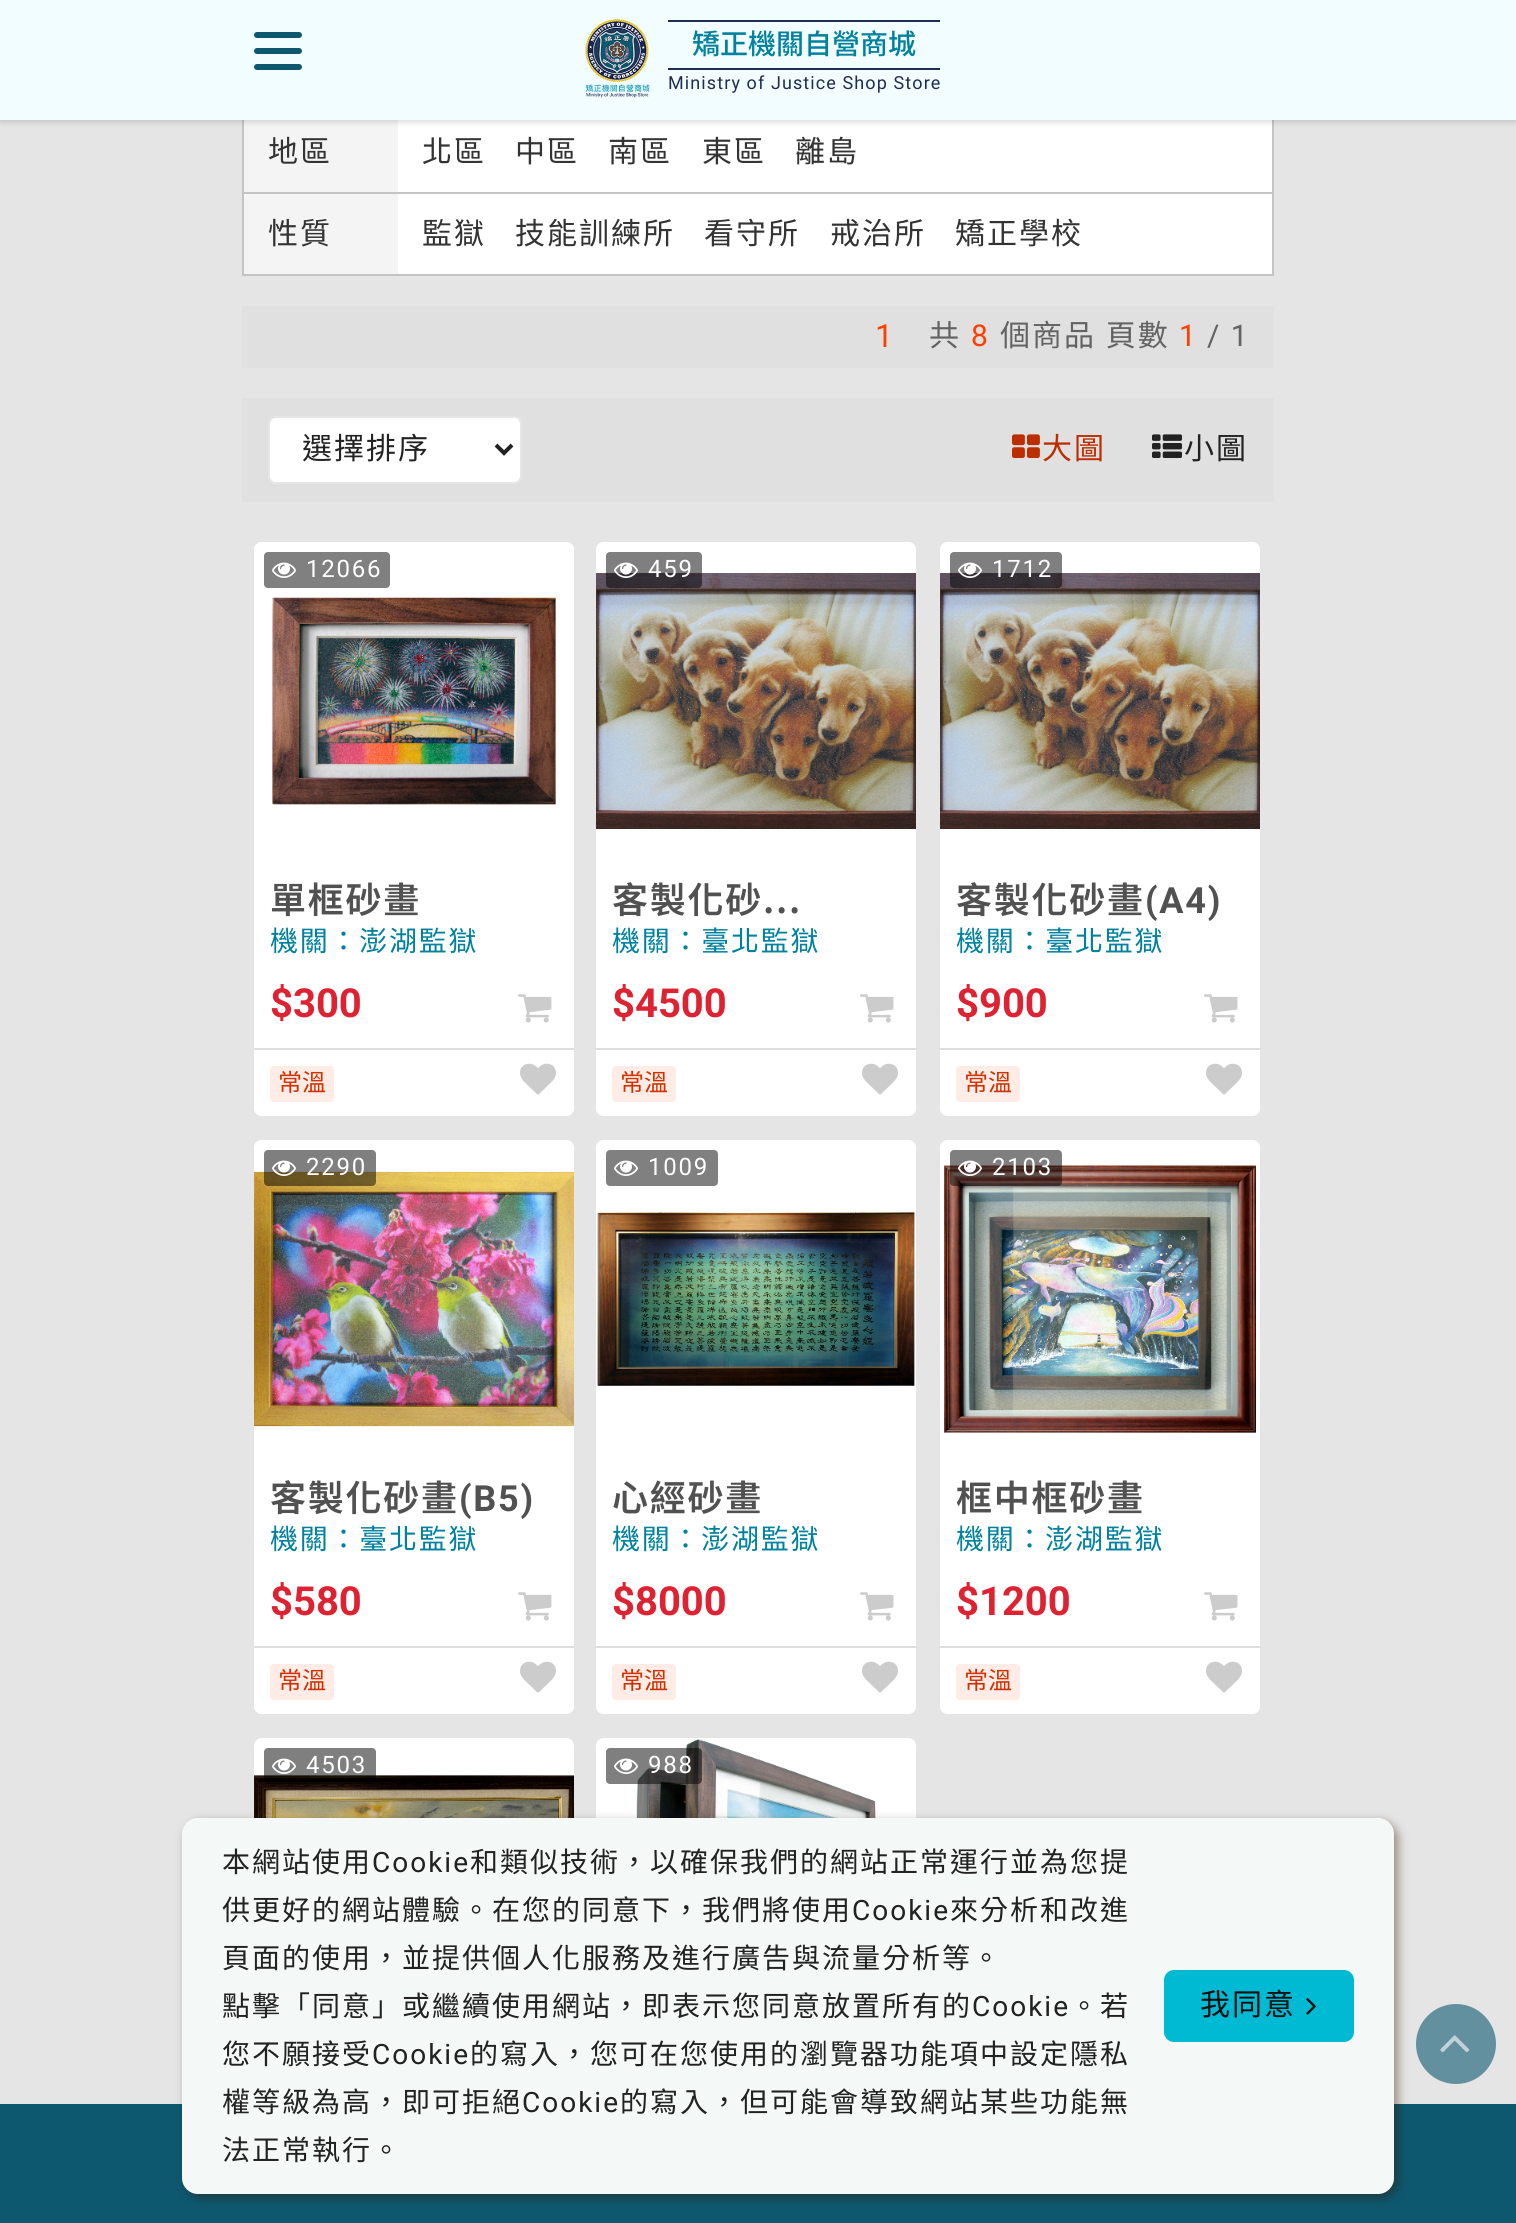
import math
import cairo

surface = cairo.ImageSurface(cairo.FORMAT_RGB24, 1516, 2223)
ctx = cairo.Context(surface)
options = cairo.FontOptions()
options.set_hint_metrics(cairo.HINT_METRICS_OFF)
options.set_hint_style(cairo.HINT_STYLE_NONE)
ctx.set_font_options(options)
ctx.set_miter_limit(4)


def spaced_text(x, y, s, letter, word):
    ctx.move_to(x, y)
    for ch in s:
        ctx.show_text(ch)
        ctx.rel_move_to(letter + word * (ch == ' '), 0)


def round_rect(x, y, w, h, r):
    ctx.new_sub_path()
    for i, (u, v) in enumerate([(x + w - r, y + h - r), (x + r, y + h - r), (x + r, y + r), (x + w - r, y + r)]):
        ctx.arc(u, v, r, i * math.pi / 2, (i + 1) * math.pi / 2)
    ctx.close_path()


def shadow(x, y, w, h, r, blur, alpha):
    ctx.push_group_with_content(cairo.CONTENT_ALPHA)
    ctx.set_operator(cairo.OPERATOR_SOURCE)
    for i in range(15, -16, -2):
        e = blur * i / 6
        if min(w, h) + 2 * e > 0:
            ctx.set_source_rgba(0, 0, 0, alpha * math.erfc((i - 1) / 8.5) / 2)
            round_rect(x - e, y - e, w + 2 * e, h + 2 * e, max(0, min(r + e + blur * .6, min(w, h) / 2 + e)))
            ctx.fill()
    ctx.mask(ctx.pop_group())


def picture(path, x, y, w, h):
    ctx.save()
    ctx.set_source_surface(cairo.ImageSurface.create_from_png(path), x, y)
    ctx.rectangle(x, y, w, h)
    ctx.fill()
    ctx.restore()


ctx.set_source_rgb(0.898, 0.898, 0.898)
ctx.paint()
ctx.set_source_rgb(0.769, 0.769, 0.769)
ctx.rectangle(1272, 120, 2, 156)
ctx.fill()
ctx.rectangle(242, 274, 1032, 2)
ctx.fill()
ctx.rectangle(242, 120, 2, 156)
ctx.fill()
ctx.set_source_rgb(0.957, 0.957, 0.957)
ctx.rectangle(244, 120, 154, 72)
ctx.fill()
ctx.set_source_rgb(1, 1, 1)
ctx.rectangle(398, 120, 874, 72)
ctx.fill()
ctx.set_source_rgb(0, 0, 0)
shadow(0, 2, 1516, 120, 0, 3, 0.15)
ctx.set_source_rgb(0.949, 0.992, 1)
ctx.rectangle(0, 0, 1516, 120)
ctx.fill()
ctx.set_source_rgb(0.051, 0.345, 0.435)
round_rect(254, 32, 48, 6, 3)
ctx.fill()
round_rect(254, 48, 48, 6, 3)
ctx.fill()
round_rect(254, 64, 48, 6, 3)
ctx.fill()
picture("img1.png", 585, 19, 65, 79)
ctx.set_source_rgb(0.133, 0.173, 0.318)
ctx.rectangle(668, 20, 272, 2)
ctx.fill()
ctx.rectangle(668, 68, 272, 2)
ctx.fill()
ctx.select_font_face("Noto Sans TC Medium")
ctx.set_font_size(28)
ctx.set_source_rgb(0, 0.506, 0.616)
ctx.move_to(692, 54)
ctx.show_text("矯正機關自營商城")
ctx.select_font_face("Roboto")
ctx.set_font_size(18)
ctx.set_source_rgb(0.133, 0.173, 0.318)
spaced_text(668, 89, "Ministry of Justice Shop Store", 1.1, 0)
ctx.select_font_face("Noto Sans TC")
ctx.set_font_size(30)
ctx.set_source_rgb(0.2, 0.2, 0.2)
spaced_text(268, 162, "地區", 2, 0)
ctx.set_source_rgb(0.769, 0.769, 0.769)
ctx.rectangle(242, 192, 1032, 2)
ctx.fill()
ctx.set_source_rgb(0.2, 0.2, 0.2)
spaced_text(422, 162, "北區", 2, 0)
spaced_text(515, 162, "中區", 2, 0)
spaced_text(608, 162, "南區", 2, 0)
spaced_text(702, 162, "東區", 2, 0)
spaced_text(795, 162, "離島", 2, 0)
ctx.set_source_rgb(0.957, 0.957, 0.957)
ctx.rectangle(244, 194, 154, 80)
ctx.fill()
ctx.set_source_rgb(0.2, 0.2, 0.2)
spaced_text(268, 244, "性質", 2, 0)
ctx.set_source_rgb(1, 1, 1)
ctx.rectangle(398, 194, 874, 80)
ctx.fill()
ctx.set_source_rgb(0.2, 0.2, 0.2)
spaced_text(422, 244, "監獄", 2, 0)
spaced_text(515, 244, "技能訓練所", 2, 0)
spaced_text(704, 244, "看守所", 2, 0)
spaced_text(830, 244, "戒治所", 2, 0)
spaced_text(955, 244, "矯正學校", 2, 0)
ctx.set_source_rgb(0.878, 0.878, 0.878)
ctx.rectangle(242, 306, 1032, 62)
ctx.fill()
ctx.select_font_face("Roboto")
ctx.set_font_size(32)
ctx.set_source_rgb(1, 0.243, 0.004)
spaced_text(875, 347, "1", 2, 0)
ctx.select_font_face("Noto Sans TC")
ctx.set_font_size(30)
ctx.set_source_rgb(0.388, 0.388, 0.388)
spaced_text(929, 346, "共", 2, 0)
ctx.select_font_face("Roboto")
ctx.set_source_rgb(1, 0.243, 0.004)
spaced_text(971, 346, "8", 2, 0)
ctx.select_font_face("Noto Sans TC")
ctx.set_source_rgb(0.388, 0.388, 0.388)
spaced_text(1000, 346, "個商品 頁數", 2, 1)
ctx.select_font_face("Roboto")
ctx.set_source_rgb(1, 0.243, 0.004)
spaced_text(1179, 346, "1", 2, 0)
ctx.set_source_rgb(0.388, 0.388, 0.388)
spaced_text(1207, 346, "/ 1", 2, 0)
ctx.set_source_rgb(0.878, 0.878, 0.878)
ctx.rectangle(242, 398, 1032, 104)
ctx.fill()
ctx.set_source_rgb(1, 1, 1)
round_rect(269, 417, 252, 66, 7)
ctx.fill_preserve()
ctx.set_source_rgb(0.902, 0.902, 0.902)
ctx.stroke()
ctx.new_path()
ctx.move_to(496, 445)
ctx.line_to(504, 453)
ctx.line_to(512, 445)
ctx.set_source_rgb(0.133, 0.133, 0.133)
ctx.set_line_width(4)
ctx.stroke()
ctx.select_font_face("Noto Sans TC")
spaced_text(302, 459, "選擇排序", 2, 0)
picture("img2.png", 1012, 434, 28, 24)
ctx.set_source_rgb(0.737, 0.176, 0)
spaced_text(1042, 459, "大圖", 2, 0)
picture("img3.png", 1152, 434, 30, 24)
ctx.set_source_rgb(0.133, 0.133, 0.133)
spaced_text(1184, 459, "小圖", 2, 0)
ctx.set_source_rgb(1, 1, 1)
ctx.new_path()
ctx.move_to(262, 542)
ctx.line_to(566, 542)
ctx.curve_to(570.5, 542, 574, 545.5, 574, 550)
ctx.line_to(574, 860)
ctx.line_to(254, 860)
ctx.line_to(254, 550)
ctx.curve_to(254, 545.5, 257.5, 542, 262, 542)
ctx.close_path()
ctx.fill()
picture("img4.png", 254, 542, 320, 263)
ctx.set_source_rgb(0.502, 0.502, 0.502)
round_rect(264, 552, 126, 36, 4)
ctx.fill()
picture("img5.png", 272, 562, 24, 16)
ctx.select_font_face("Roboto")
ctx.set_font_size(24)
ctx.set_source_rgb(1, 1, 1)
spaced_text(306, 577, "12066", 1.75, 0)
ctx.new_path()
ctx.move_to(254, 860)
ctx.line_to(574, 860)
ctx.line_to(574, 1108)
ctx.curve_to(574, 1112.5, 570.5, 1116, 566, 1116)
ctx.line_to(262, 1116)
ctx.curve_to(257.5, 1116, 254, 1112.5, 254, 1108)
ctx.close_path()
ctx.fill()
ctx.select_font_face("Noto Sans TC SemiBold")
ctx.set_font_size(36)
ctx.set_source_rgb(0.318, 0.318, 0.318)
spaced_text(270, 913, "單框砂畫", 1.75, 0)
ctx.select_font_face("Noto Sans TC")
ctx.set_font_size(28)
ctx.set_source_rgb(0, 0.506, 0.616)
spaced_text(270, 951, "機關：澎湖監獄", 1.75, 0)
ctx.select_font_face("Roboto", cairo.FONT_SLANT_NORMAL, cairo.FONT_WEIGHT_BOLD)
ctx.set_font_size(40)
ctx.set_source_rgb(0.875, 0.133, 0.192)
ctx.move_to(270, 1017)
ctx.show_text("$300")
picture("img6.png", 518, 994, 34, 29)
ctx.set_source_rgb(1, 1, 1)
ctx.new_path()
ctx.move_to(254, 1048)
ctx.line_to(574, 1048)
ctx.line_to(574, 1108)
ctx.curve_to(574, 1112.5, 570.5, 1116, 566, 1116)
ctx.line_to(262, 1116)
ctx.curve_to(257.5, 1116, 254, 1112.5, 254, 1108)
ctx.close_path()
ctx.fill()
ctx.set_source_rgb(0.875, 0.875, 0.875)
ctx.rectangle(254, 1048, 320, 2)
ctx.fill()
ctx.set_source_rgb(1, 0.925, 0.902)
round_rect(270, 1066, 64, 36, 4)
ctx.fill()
ctx.select_font_face("Noto Sans TC")
ctx.set_font_size(24)
ctx.set_source_rgb(0.808, 0.196, 0)
ctx.move_to(278, 1091)
ctx.show_text("常溫")
picture("img7.png", 520, 1063, 36, 32)
ctx.set_source_rgb(1, 1, 1)
ctx.new_path()
ctx.move_to(604, 542)
ctx.line_to(908, 542)
ctx.curve_to(912.5, 542, 916, 545.5, 916, 550)
ctx.line_to(916, 860)
ctx.line_to(596, 860)
ctx.line_to(596, 550)
ctx.curve_to(596, 545.5, 599.5, 542, 604, 542)
ctx.close_path()
ctx.fill()
picture("img8.png", 596, 542, 320, 287)
ctx.set_source_rgba(0, 0, 0, 0.5)
round_rect(606, 552, 96, 36, 4)
ctx.fill()
picture("img9.png", 614, 562, 24, 16)
ctx.select_font_face("Roboto")
ctx.set_source_rgb(1, 1, 1)
spaced_text(648, 577, "459", 1.75, 0)
ctx.new_path()
ctx.move_to(596, 860)
ctx.line_to(916, 860)
ctx.line_to(916, 1108)
ctx.curve_to(916, 1112.5, 912.5, 1116, 908, 1116)
ctx.line_to(604, 1116)
ctx.curve_to(599.5, 1116, 596, 1112.5, 596, 1108)
ctx.close_path()
ctx.fill()
ctx.select_font_face("Noto Sans TC SemiBold")
ctx.set_font_size(36)
ctx.set_source_rgb(0.318, 0.318, 0.318)
spaced_text(612, 913, "客製化砂...", 1.75, 0)
ctx.select_font_face("Noto Sans TC")
ctx.set_font_size(28)
ctx.set_source_rgb(0, 0.506, 0.616)
spaced_text(612, 951, "機關：臺北監獄", 1.75, 0)
ctx.select_font_face("Roboto", cairo.FONT_SLANT_NORMAL, cairo.FONT_WEIGHT_BOLD)
ctx.set_font_size(40)
ctx.set_source_rgb(0.875, 0.133, 0.192)
ctx.move_to(612, 1017)
ctx.show_text("$4500")
picture("img6.png", 860, 994, 34, 29)
ctx.set_source_rgb(1, 1, 1)
ctx.new_path()
ctx.move_to(596, 1048)
ctx.line_to(916, 1048)
ctx.line_to(916, 1108)
ctx.curve_to(916, 1112.5, 912.5, 1116, 908, 1116)
ctx.line_to(604, 1116)
ctx.curve_to(599.5, 1116, 596, 1112.5, 596, 1108)
ctx.close_path()
ctx.fill()
ctx.set_source_rgb(0.875, 0.875, 0.875)
ctx.rectangle(596, 1048, 320, 2)
ctx.fill()
ctx.set_source_rgb(1, 0.925, 0.902)
round_rect(612, 1066, 64, 36, 4)
ctx.fill()
ctx.select_font_face("Noto Sans TC")
ctx.set_font_size(24)
ctx.set_source_rgb(0.808, 0.196, 0)
ctx.move_to(620, 1091)
ctx.show_text("常溫")
picture("img7.png", 862, 1063, 36, 32)
ctx.set_source_rgb(1, 1, 1)
ctx.new_path()
ctx.move_to(948, 542)
ctx.line_to(1252, 542)
ctx.curve_to(1256.5, 542, 1260, 545.5, 1260, 550)
ctx.line_to(1260, 860)
ctx.line_to(940, 860)
ctx.line_to(940, 550)
ctx.curve_to(940, 545.5, 943.5, 542, 948, 542)
ctx.close_path()
ctx.fill()
picture("img8.png", 940, 542, 320, 287)
ctx.set_source_rgba(0, 0, 0, 0.5)
round_rect(950, 552, 112, 36, 4)
ctx.fill()
picture("img9.png", 958, 562, 24, 16)
ctx.select_font_face("Roboto")
ctx.set_source_rgb(1, 1, 1)
spaced_text(992, 577, "1712", 1.75, 0)
ctx.new_path()
ctx.move_to(940, 860)
ctx.line_to(1260, 860)
ctx.line_to(1260, 1108)
ctx.curve_to(1260, 1112.5, 1256.5, 1116, 1252, 1116)
ctx.line_to(948, 1116)
ctx.curve_to(943.5, 1116, 940, 1112.5, 940, 1108)
ctx.close_path()
ctx.fill()
ctx.select_font_face("Noto Sans TC SemiBold")
ctx.set_font_size(36)
ctx.set_source_rgb(0.318, 0.318, 0.318)
spaced_text(956, 913, "客製化砂畫", 1.75, 0)
ctx.select_font_face("Roboto", cairo.FONT_SLANT_NORMAL, cairo.FONT_WEIGHT_BOLD)
spaced_text(1145, 913, "(A4)", 1.75, 0)
ctx.select_font_face("Noto Sans TC")
ctx.set_font_size(28)
ctx.set_source_rgb(0, 0.506, 0.616)
spaced_text(956, 951, "機關：臺北監獄", 1.75, 0)
ctx.select_font_face("Roboto", cairo.FONT_SLANT_NORMAL, cairo.FONT_WEIGHT_BOLD)
ctx.set_font_size(40)
ctx.set_source_rgb(0.875, 0.133, 0.192)
ctx.move_to(956, 1017)
ctx.show_text("$900")
picture("img6.png", 1204, 994, 34, 29)
ctx.set_source_rgb(1, 1, 1)
ctx.new_path()
ctx.move_to(940, 1048)
ctx.line_to(1260, 1048)
ctx.line_to(1260, 1108)
ctx.curve_to(1260, 1112.5, 1256.5, 1116, 1252, 1116)
ctx.line_to(948, 1116)
ctx.curve_to(943.5, 1116, 940, 1112.5, 940, 1108)
ctx.close_path()
ctx.fill()
ctx.set_source_rgb(0.875, 0.875, 0.875)
ctx.rectangle(940, 1048, 320, 2)
ctx.fill()
ctx.set_source_rgb(1, 0.925, 0.902)
round_rect(956, 1066, 64, 36, 4)
ctx.fill()
ctx.select_font_face("Noto Sans TC")
ctx.set_font_size(24)
ctx.set_source_rgb(0.808, 0.196, 0)
ctx.move_to(964, 1091)
ctx.show_text("常溫")
picture("img7.png", 1206, 1063, 36, 32)
ctx.set_source_rgb(1, 1, 1)
ctx.new_path()
ctx.move_to(262, 1140)
ctx.line_to(566, 1140)
ctx.curve_to(570.5, 1140, 574, 1143.5, 574, 1148)
ctx.line_to(574, 1458)
ctx.line_to(254, 1458)
ctx.line_to(254, 1148)
ctx.curve_to(254, 1143.5, 257.5, 1140, 262, 1140)
ctx.close_path()
ctx.fill()
picture("img10.png", 254, 1140, 320, 287)
ctx.set_source_rgba(0, 0, 0, 0.5)
round_rect(264, 1150, 112, 36, 4)
ctx.fill()
picture("img11.png", 272, 1160, 24, 16)
ctx.select_font_face("Roboto")
ctx.set_source_rgb(1, 1, 1)
spaced_text(306, 1175, "2290", 1.75, 0)
ctx.new_path()
ctx.move_to(254, 1458)
ctx.line_to(574, 1458)
ctx.line_to(574, 1706)
ctx.curve_to(574, 1710.5, 570.5, 1714, 566, 1714)
ctx.line_to(262, 1714)
ctx.curve_to(257.5, 1714, 254, 1710.5, 254, 1706)
ctx.close_path()
ctx.fill()
ctx.select_font_face("Noto Sans TC SemiBold")
ctx.set_font_size(36)
ctx.set_source_rgb(0.318, 0.318, 0.318)
spaced_text(270, 1511, "客製化砂畫", 1.75, 0)
ctx.select_font_face("Roboto", cairo.FONT_SLANT_NORMAL, cairo.FONT_WEIGHT_BOLD)
spaced_text(459, 1511, "(B5)", 1.75, 0)
ctx.select_font_face("Noto Sans TC")
ctx.set_font_size(28)
ctx.set_source_rgb(0, 0.506, 0.616)
spaced_text(270, 1549, "機關：臺北監獄", 1.75, 0)
ctx.select_font_face("Roboto", cairo.FONT_SLANT_NORMAL, cairo.FONT_WEIGHT_BOLD)
ctx.set_font_size(40)
ctx.set_source_rgb(0.875, 0.133, 0.192)
ctx.move_to(270, 1615)
ctx.show_text("$580")
picture("img6.png", 518, 1592, 34, 29)
ctx.set_source_rgb(1, 1, 1)
ctx.new_path()
ctx.move_to(254, 1646)
ctx.line_to(574, 1646)
ctx.line_to(574, 1706)
ctx.curve_to(574, 1710.5, 570.5, 1714, 566, 1714)
ctx.line_to(262, 1714)
ctx.curve_to(257.5, 1714, 254, 1710.5, 254, 1706)
ctx.close_path()
ctx.fill()
ctx.set_source_rgb(0.875, 0.875, 0.875)
ctx.rectangle(254, 1646, 320, 2)
ctx.fill()
ctx.set_source_rgb(1, 0.925, 0.902)
round_rect(270, 1664, 64, 36, 4)
ctx.fill()
ctx.select_font_face("Noto Sans TC")
ctx.set_font_size(24)
ctx.set_source_rgb(0.808, 0.196, 0)
ctx.move_to(278, 1689)
ctx.show_text("常溫")
picture("img7.png", 520, 1661, 36, 32)
ctx.set_source_rgb(1, 1, 1)
ctx.new_path()
ctx.move_to(604, 1140)
ctx.line_to(908, 1140)
ctx.curve_to(912.5, 1140, 916, 1143.5, 916, 1148)
ctx.line_to(916, 1458)
ctx.line_to(596, 1458)
ctx.line_to(596, 1148)
ctx.curve_to(596, 1143.5, 599.5, 1140, 604, 1140)
ctx.close_path()
ctx.fill()
picture("img12.png", 596, 1140, 320, 246)
ctx.set_source_rgb(0.502, 0.502, 0.502)
round_rect(606, 1150, 112, 36, 4)
ctx.fill()
picture("img5.png", 614, 1160, 24, 16)
ctx.select_font_face("Roboto")
ctx.set_source_rgb(1, 1, 1)
spaced_text(648, 1175, "1009", 1.75, 0)
ctx.new_path()
ctx.move_to(596, 1458)
ctx.line_to(916, 1458)
ctx.line_to(916, 1706)
ctx.curve_to(916, 1710.5, 912.5, 1714, 908, 1714)
ctx.line_to(604, 1714)
ctx.curve_to(599.5, 1714, 596, 1710.5, 596, 1706)
ctx.close_path()
ctx.fill()
ctx.select_font_face("Noto Sans TC SemiBold")
ctx.set_font_size(36)
ctx.set_source_rgb(0.318, 0.318, 0.318)
spaced_text(612, 1511, "心經砂畫", 1.75, 0)
ctx.select_font_face("Noto Sans TC")
ctx.set_font_size(28)
ctx.set_source_rgb(0, 0.506, 0.616)
spaced_text(612, 1549, "機關：澎湖監獄", 1.75, 0)
ctx.select_font_face("Roboto", cairo.FONT_SLANT_NORMAL, cairo.FONT_WEIGHT_BOLD)
ctx.set_font_size(40)
ctx.set_source_rgb(0.875, 0.133, 0.192)
ctx.move_to(612, 1615)
ctx.show_text("$8000")
picture("img6.png", 860, 1592, 34, 29)
ctx.set_source_rgb(1, 1, 1)
ctx.new_path()
ctx.move_to(596, 1646)
ctx.line_to(916, 1646)
ctx.line_to(916, 1706)
ctx.curve_to(916, 1710.5, 912.5, 1714, 908, 1714)
ctx.line_to(604, 1714)
ctx.curve_to(599.5, 1714, 596, 1710.5, 596, 1706)
ctx.close_path()
ctx.fill()
ctx.set_source_rgb(0.875, 0.875, 0.875)
ctx.rectangle(596, 1646, 320, 2)
ctx.fill()
ctx.set_source_rgb(1, 0.925, 0.902)
round_rect(612, 1664, 64, 36, 4)
ctx.fill()
ctx.select_font_face("Noto Sans TC")
ctx.set_font_size(24)
ctx.set_source_rgb(0.808, 0.196, 0)
ctx.move_to(620, 1689)
ctx.show_text("常溫")
picture("img7.png", 862, 1661, 36, 32)
ctx.set_source_rgb(1, 1, 1)
ctx.new_path()
ctx.move_to(948, 1140)
ctx.line_to(1252, 1140)
ctx.curve_to(1256.5, 1140, 1260, 1143.5, 1260, 1148)
ctx.line_to(1260, 1458)
ctx.line_to(940, 1458)
ctx.line_to(940, 1148)
ctx.curve_to(940, 1143.5, 943.5, 1140, 948, 1140)
ctx.close_path()
ctx.fill()
picture("img13.png", 940, 1140, 320, 293)
ctx.set_source_rgba(0, 0, 0, 0.5)
round_rect(950, 1150, 112, 36, 4)
ctx.fill()
picture("img14.png", 958, 1160, 24, 16)
ctx.select_font_face("Roboto")
ctx.set_source_rgb(1, 1, 1)
spaced_text(992, 1175, "2103", 1.75, 0)
ctx.new_path()
ctx.move_to(940, 1458)
ctx.line_to(1260, 1458)
ctx.line_to(1260, 1706)
ctx.curve_to(1260, 1710.5, 1256.5, 1714, 1252, 1714)
ctx.line_to(948, 1714)
ctx.curve_to(943.5, 1714, 940, 1710.5, 940, 1706)
ctx.close_path()
ctx.fill()
ctx.select_font_face("Noto Sans TC SemiBold")
ctx.set_font_size(36)
ctx.set_source_rgb(0.318, 0.318, 0.318)
spaced_text(956, 1511, "框中框砂畫", 1.75, 0)
ctx.select_font_face("Noto Sans TC")
ctx.set_font_size(28)
ctx.set_source_rgb(0, 0.506, 0.616)
spaced_text(956, 1549, "機關：澎湖監獄", 1.75, 0)
ctx.select_font_face("Roboto", cairo.FONT_SLANT_NORMAL, cairo.FONT_WEIGHT_BOLD)
ctx.set_font_size(40)
ctx.set_source_rgb(0.875, 0.133, 0.192)
ctx.move_to(956, 1615)
ctx.show_text("$1200")
picture("img6.png", 1204, 1592, 34, 29)
ctx.set_source_rgb(1, 1, 1)
ctx.new_path()
ctx.move_to(940, 1646)
ctx.line_to(1260, 1646)
ctx.line_to(1260, 1706)
ctx.curve_to(1260, 1710.5, 1256.5, 1714, 1252, 1714)
ctx.line_to(948, 1714)
ctx.curve_to(943.5, 1714, 940, 1710.5, 940, 1706)
ctx.close_path()
ctx.fill()
ctx.set_source_rgb(0.875, 0.875, 0.875)
ctx.rectangle(940, 1646, 320, 2)
ctx.fill()
ctx.set_source_rgb(1, 0.925, 0.902)
round_rect(956, 1664, 64, 36, 4)
ctx.fill()
ctx.select_font_face("Noto Sans TC")
ctx.set_font_size(24)
ctx.set_source_rgb(0.808, 0.196, 0)
ctx.move_to(964, 1689)
ctx.show_text("常溫")
picture("img7.png", 1206, 1661, 36, 32)
picture("img15.png", 254, 1738, 320, 80)
ctx.set_source_rgba(0, 0, 0, 0.5)
round_rect(264, 1748, 112, 36, 4)
ctx.fill()
picture("img16.png", 272, 1758, 24, 16)
ctx.select_font_face("Roboto")
ctx.set_source_rgb(1, 1, 1)
spaced_text(306, 1773, "4503", 1.75, 0)
picture("img17.png", 596, 1738, 320, 80)
ctx.set_source_rgba(0, 0, 0, 0.5)
round_rect(606, 1748, 96, 36, 4)
ctx.fill()
picture("img18.png", 614, 1758, 24, 16)
ctx.set_source_rgb(1, 1, 1)
spaced_text(648, 1773, "988", 1.75, 0)
ctx.set_source_rgb(0.051, 0.345, 0.435)
ctx.rectangle(0, 2104, 1516, 119)
ctx.fill()
ctx.set_source_rgb(0.196, 0.075, 0)
shadow(186, 1822, 1212, 376, 16, 5, 0.44)
ctx.set_source_rgb(0.957, 0.976, 0.969)
round_rect(182, 1818, 1212, 376, 16)
ctx.fill()
ctx.select_font_face("Noto Sans TC")
ctx.set_font_size(28)
ctx.set_source_rgb(0.133, 0.133, 0.133)
spaced_text(222, 1872, "本網站使用", 2, 0)
ctx.select_font_face("Roboto")
spaced_text(372, 1872, "Cookie", 2, 0)
ctx.select_font_face("Noto Sans TC")
spaced_text(470, 1872, "和類似技術，以確保我們的網站正常運行並為您提", 2, 0)
spaced_text(222, 1920, "供更好的網站體驗。在您的同意下，我們將使用", 2, 0)
ctx.select_font_face("Roboto")
spaced_text(852, 1920, "Cookie", 2, 0)
ctx.select_font_face("Noto Sans TC")
spaced_text(950, 1920, "來分析和改進", 2, 0)
spaced_text(222, 1968, "頁面的使用，並提供個人化服務及進行廣告與流量分析等。", 2, 0)
spaced_text(222, 2016, "點擊「同意」或繼續使用網站，即表示您同意放置所有的", 2, 0)
ctx.select_font_face("Roboto")
spaced_text(972, 2016, "Cookie", 2, 0)
ctx.select_font_face("Noto Sans TC")
spaced_text(1070, 2016, "。若", 2, 0)
spaced_text(222, 2064, "您不願接受", 2, 0)
ctx.select_font_face("Roboto")
spaced_text(372, 2064, "Cookie", 2, 0)
ctx.select_font_face("Noto Sans TC")
spaced_text(470, 2064, "的寫入，您可在您使用的瀏覽器功能項中設定隱私", 2, 0)
spaced_text(222, 2112, "權等級為高，即可拒絕", 2, 0)
ctx.select_font_face("Roboto")
spaced_text(522, 2112, "Cookie", 2, 0)
ctx.select_font_face("Noto Sans TC")
spaced_text(620, 2112, "的寫入，但可能會導致網站某些功能無", 2, 0)
spaced_text(222, 2160, "法正常執行。", 2, 0)
ctx.set_source_rgb(0, 0.729, 0.827)
round_rect(1164, 1970, 190, 72, 10)
ctx.fill()
ctx.set_font_size(30)
ctx.set_source_rgb(0.055, 0.055, 0.055)
spaced_text(1200, 2015, "我同意", 2, 0)
picture("img19.png", 1306, 1998, 10, 17)
ctx.set_source_rgb(0.388, 0.565, 0.62)
ctx.arc(1456, 2044, 40, 0, 2 * math.pi)
ctx.fill()
picture("img20.png", 1440, 2035, 30, 18)
surface.write_to_png("page.png")
